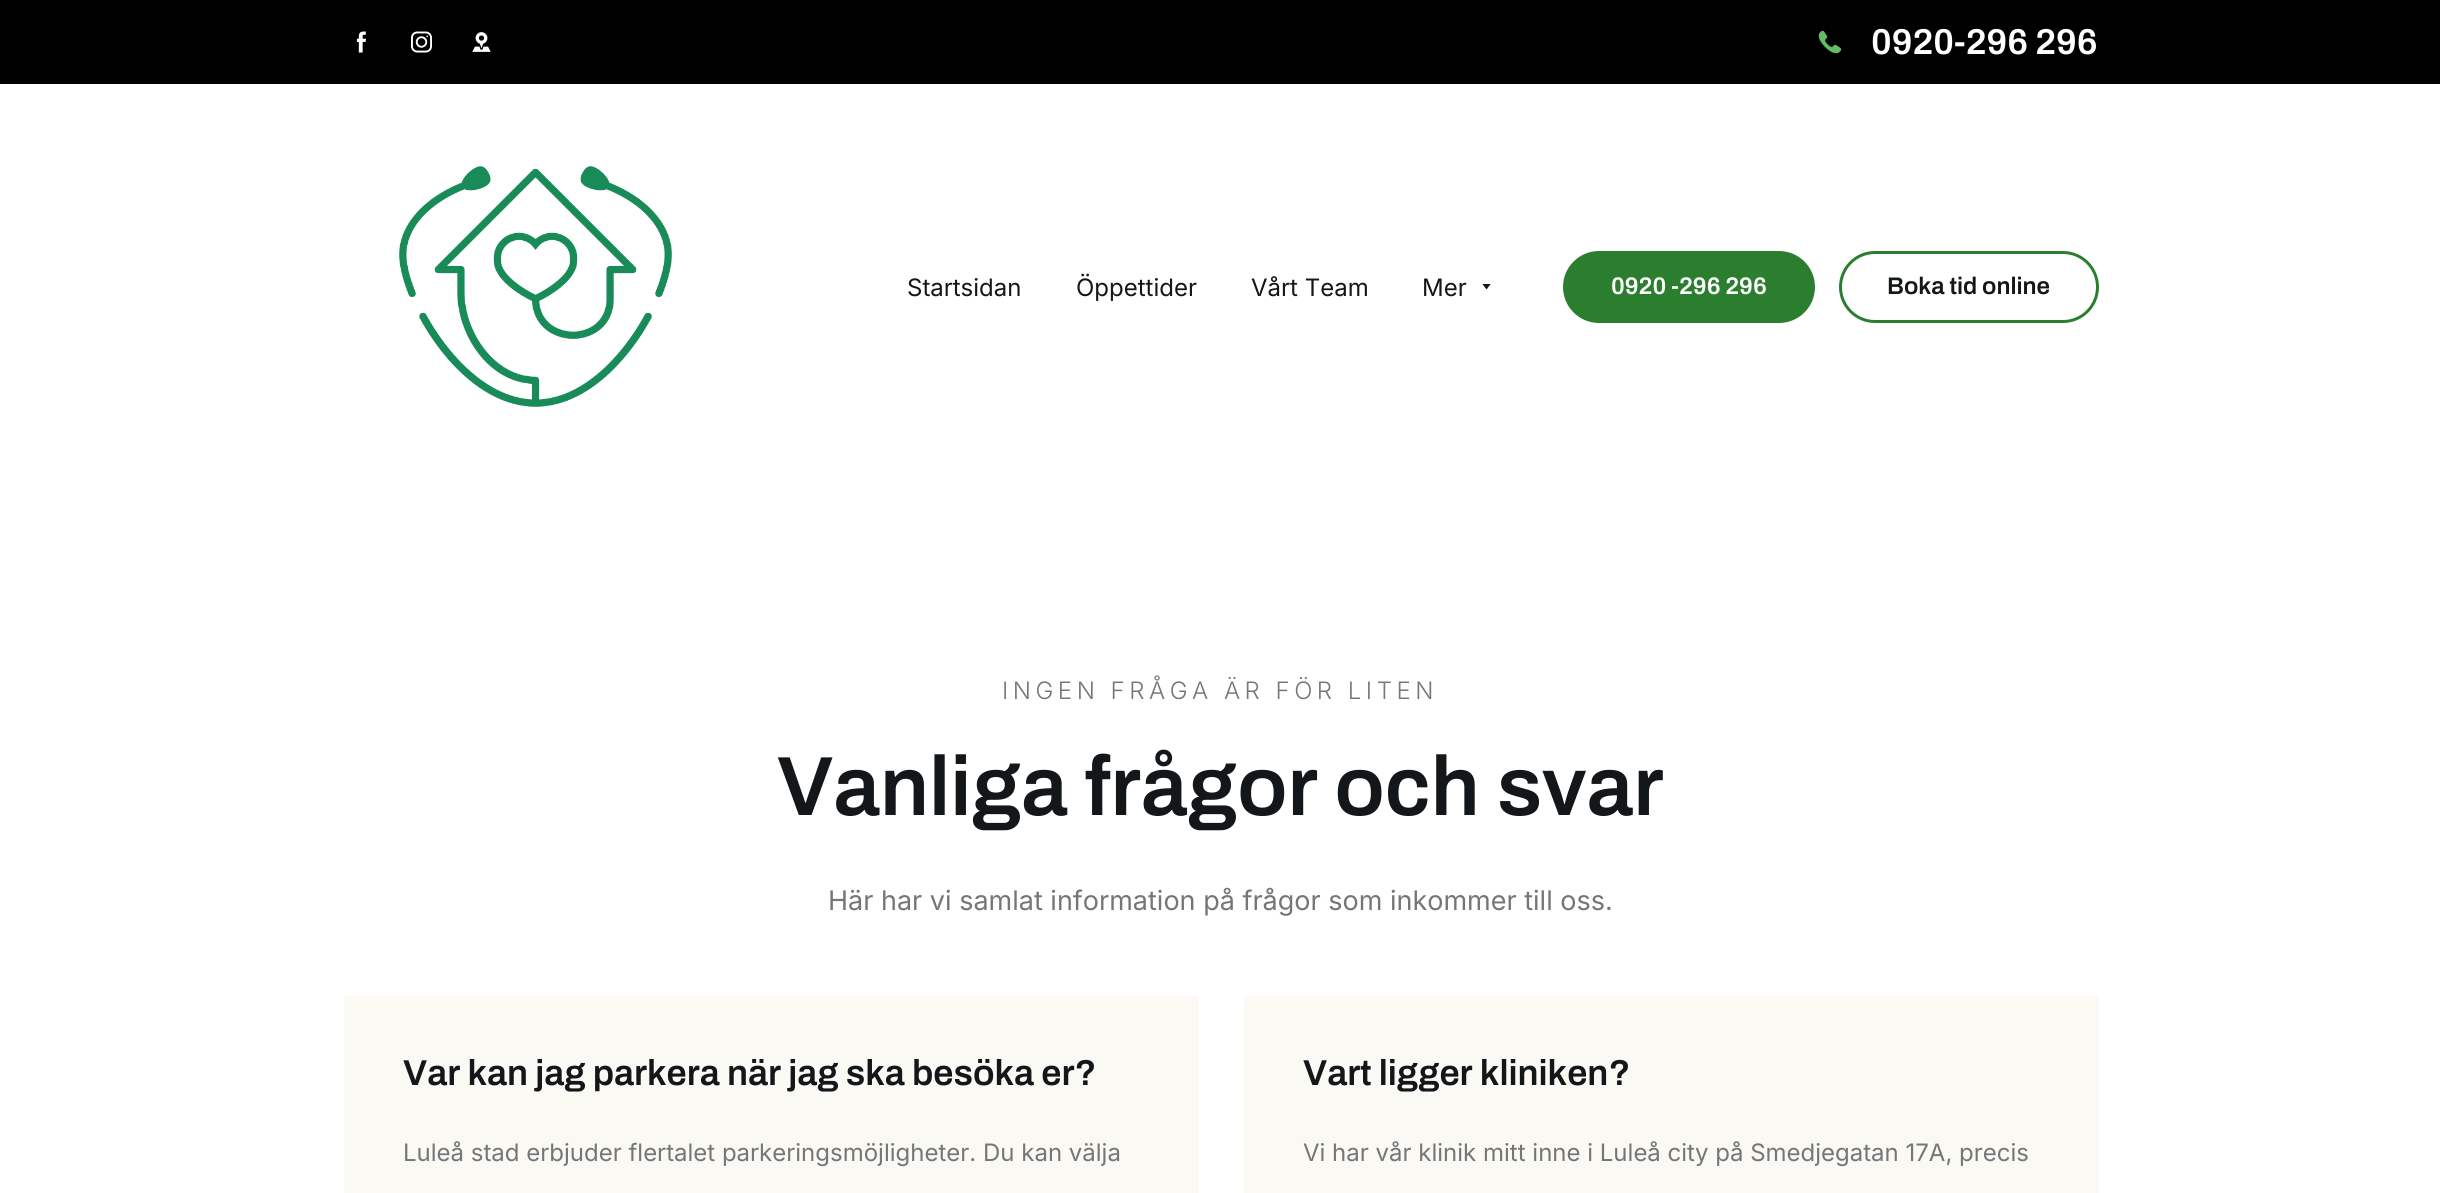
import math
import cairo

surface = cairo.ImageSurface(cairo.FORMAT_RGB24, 2440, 1193)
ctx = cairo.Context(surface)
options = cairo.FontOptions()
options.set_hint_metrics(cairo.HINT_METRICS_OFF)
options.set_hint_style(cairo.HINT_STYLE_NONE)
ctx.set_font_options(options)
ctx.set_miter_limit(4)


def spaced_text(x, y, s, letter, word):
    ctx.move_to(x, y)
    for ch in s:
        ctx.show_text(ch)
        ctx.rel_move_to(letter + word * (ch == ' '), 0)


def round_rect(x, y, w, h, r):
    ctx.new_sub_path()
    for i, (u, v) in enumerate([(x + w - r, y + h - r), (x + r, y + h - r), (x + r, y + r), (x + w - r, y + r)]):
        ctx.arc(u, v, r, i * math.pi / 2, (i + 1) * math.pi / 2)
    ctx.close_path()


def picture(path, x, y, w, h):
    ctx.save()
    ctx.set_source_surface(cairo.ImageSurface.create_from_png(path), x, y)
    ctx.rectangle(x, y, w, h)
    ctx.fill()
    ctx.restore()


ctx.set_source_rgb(1, 1, 1)
ctx.paint()
ctx.set_source_rgb(0, 0, 0)
ctx.rectangle(0, 0, 2440, 84)
ctx.fill()
picture("img1.png", 356, 31, 10, 22)
picture("img2.png", 411, 31, 21, 22)
picture("img3.png", 472, 32, 19, 20)
picture("img4.png", 1818, 30, 24, 24)
ctx.select_font_face("Archivo SemiBold")
ctx.set_font_size(36)
ctx.set_source_rgb(1, 1, 1)
ctx.move_to(1871, 54)
ctx.show_text("0920-296 296")
picture("img5.png", 399, 166, 273, 241)
ctx.select_font_face("Inter")
ctx.set_font_size(24)
ctx.set_source_rgb(0.082, 0.09, 0.098)
ctx.move_to(907, 296)
ctx.show_text("Startsidan")
ctx.move_to(1076, 296)
ctx.show_text("Öppettider")
ctx.move_to(1251, 296)
ctx.show_text("Vårt Team")
ctx.move_to(1422, 296)
ctx.show_text("Mer")
ctx.save()
ctx.rectangle(1482, 284, 9, 6)
ctx.clip()
ctx.new_path()
ctx.move_to(1482, 283.5)
ctx.line_to(1491, 283.5)
ctx.line_to(1486.5, 289.5)
ctx.close_path()
ctx.fill()
ctx.restore()
ctx.set_source_rgb(0.165, 0.494, 0.18)
round_rect(1564.5, 252.5, 249, 69, 34.5)
ctx.fill_preserve()
ctx.set_line_width(3)
ctx.stroke()
ctx.select_font_face("Archivo SemiBold")
ctx.set_source_rgb(1, 1, 1)
ctx.move_to(1611, 294)
ctx.show_text("0920 -296 296")
round_rect(1840.5, 252.5, 257, 69, 34.5)
ctx.set_source_rgb(0.165, 0.494, 0.18)
ctx.stroke()
ctx.set_source_rgb(0.082, 0.09, 0.098)
ctx.move_to(1887, 294)
ctx.show_text("Boka tid online")
ctx.select_font_face("Inter Light")
ctx.set_source_rgb(0.459, 0.463, 0.467)
spaced_text(1002, 699, "INGEN FRÅGA ÄR FÖR LITEN", 4.5, 0)
ctx.select_font_face("Archivo SemiBold")
ctx.set_font_size(84)
ctx.set_source_rgb(0.082, 0.09, 0.098)
ctx.move_to(777, 815)
ctx.show_text("Vanliga frågor och svar")
ctx.select_font_face("Inter")
ctx.set_font_size(27)
ctx.set_source_rgb(0.459, 0.463, 0.467)
ctx.move_to(828, 910)
ctx.show_text("Här har vi samlat information på frågor som inkommer till oss.")
ctx.set_source_rgb(0.98, 0.973, 0.957)
ctx.rectangle(344, 996, 855, 197)
ctx.fill()
ctx.select_font_face("Archivo SemiBold")
ctx.set_font_size(36)
ctx.set_source_rgb(0.082, 0.09, 0.098)
ctx.move_to(403, 1085)
ctx.show_text("Var kan jag parkera när jag ska besöka er?")
ctx.select_font_face("Inter")
ctx.set_font_size(24)
ctx.set_source_rgb(0.459, 0.463, 0.467)
ctx.move_to(403, 1161)
ctx.show_text("Luleå stad erbjuder flertalet parkeringsmöjligheter. Du kan välja")
ctx.set_source_rgb(0.98, 0.973, 0.957)
ctx.rectangle(1244, 996, 855, 197)
ctx.fill()
ctx.select_font_face("Archivo SemiBold")
ctx.set_font_size(36)
ctx.set_source_rgb(0.082, 0.09, 0.098)
ctx.move_to(1303, 1085)
ctx.show_text("Vart ligger kliniken?")
ctx.select_font_face("Inter")
ctx.set_font_size(24)
ctx.set_source_rgb(0.459, 0.463, 0.467)
ctx.move_to(1303, 1161)
ctx.show_text("Vi har vår klinik mitt inne i Luleå city på Smedjegatan 17A, precis")
surface.write_to_png("page.png")
